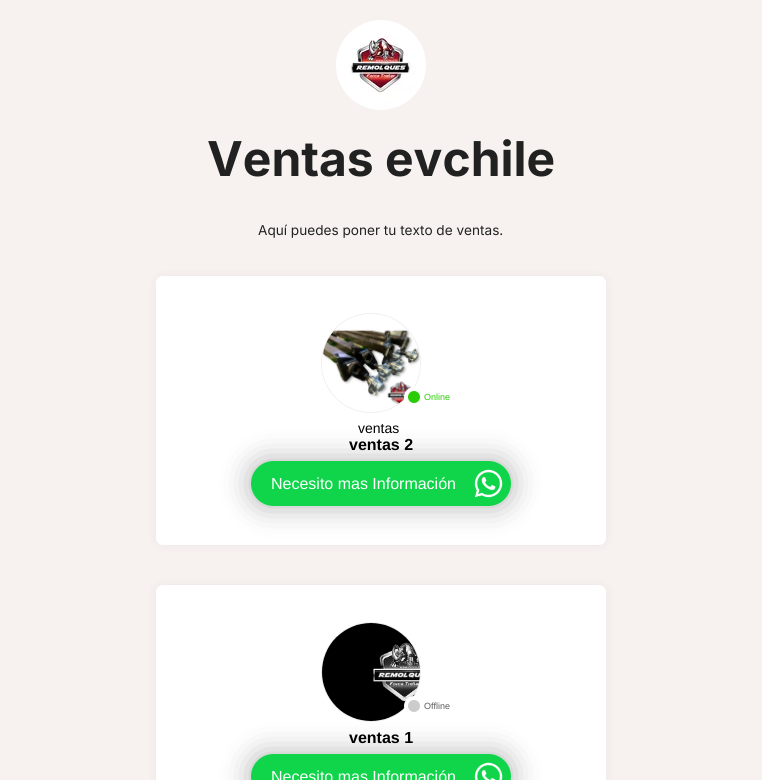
import math
import cairo

surface = cairo.ImageSurface(cairo.FORMAT_RGB24, 762, 780)
ctx = cairo.Context(surface)
options = cairo.FontOptions()
options.set_hint_metrics(cairo.HINT_METRICS_OFF)
options.set_hint_style(cairo.HINT_STYLE_NONE)
ctx.set_font_options(options)
ctx.set_miter_limit(4)


def round_rect(x, y, w, h, r):
    ctx.new_sub_path()
    for i, (u, v) in enumerate([(x + w - r, y + h - r), (x + r, y + h - r), (x + r, y + r), (x + w - r, y + r)]):
        ctx.arc(u, v, r, i * math.pi / 2, (i + 1) * math.pi / 2)
    ctx.close_path()


def shadow(x, y, w, h, r, blur, alpha):
    ctx.push_group_with_content(cairo.CONTENT_ALPHA)
    ctx.set_operator(cairo.OPERATOR_SOURCE)
    for i in range(15, -16, -2):
        e = blur * i / 6
        if min(w, h) + 2 * e > 0:
            ctx.set_source_rgba(0, 0, 0, alpha * math.erfc((i - 1) / 8.5) / 2)
            round_rect(x - e, y - e, w + 2 * e, h + 2 * e, max(0, min(r + e + blur * .6, min(w, h) / 2 + e)))
            ctx.fill()
    ctx.mask(ctx.pop_group())


def picture(path, x, y, w, h):
    ctx.save()
    ctx.set_source_surface(cairo.ImageSurface.create_from_png(path), x, y)
    ctx.rectangle(x, y, w, h)
    ctx.fill()
    ctx.restore()


ctx.set_source_rgb(0.965, 0.949, 0.937)
ctx.paint()
picture("img1.png", 336, 20, 90, 90)
ctx.select_font_face("Inter", cairo.FONT_SLANT_NORMAL, cairo.FONT_WEIGHT_BOLD)
ctx.set_font_size(48)
ctx.set_source_rgb(0.129, 0.129, 0.129)
ctx.move_to(207, 176)
ctx.show_text("Ventas evchile")
ctx.select_font_face("Inter")
ctx.set_font_size(13.6)
ctx.move_to(258, 235)
ctx.show_text("Aquí puedes poner tu texto de ventas.")
ctx.set_source_rgb(0, 0, 0)
shadow(156, 276, 450, 269, 7, 5, 0.05)
ctx.set_source_rgb(1, 1, 1)
round_rect(156, 276, 450, 269, 7)
ctx.fill()
ctx.arc(371, 363, 49.5, 0, 2 * math.pi)
ctx.set_source_rgb(0.933, 0.933, 0.933)
ctx.set_line_width(1)
ctx.stroke()
picture("img2.png", 322, 315, 98, 96)
ctx.set_source_rgb(0.165, 0.8, 0.016)
ctx.arc(414, 397, 8, 0, 2 * math.pi)
ctx.fill_preserve()
ctx.set_source_rgb(1, 1, 1)
ctx.set_line_width(4)
ctx.stroke()
ctx.select_font_face("Liberation Sans")
ctx.set_font_size(9)
ctx.set_source_rgb(0.165, 0.8, 0.016)
ctx.move_to(424, 400)
ctx.show_text("Online")
ctx.set_font_size(14)
ctx.set_source_rgb(0, 0, 0)
ctx.move_to(358, 433)
ctx.show_text("ventas")
ctx.select_font_face("Liberation Sans", cairo.FONT_SLANT_NORMAL, cairo.FONT_WEIGHT_BOLD)
ctx.set_font_size(16)
ctx.move_to(349, 450)
ctx.show_text("ventas 2")
ctx.set_source_rgb(0, 0, 0)
shadow(251, 461, 260, 45, 22.5, 15, 0.3)
ctx.set_source_rgb(0.063, 0.835, 0.294)
round_rect(251, 461, 260, 45, 22.5)
ctx.fill()
ctx.select_font_face("Liberation Sans")
ctx.set_source_rgb(1, 1, 1)
ctx.move_to(271, 489)
ctx.show_text("Necesito mas Información")
picture("img3.png", 474, 469, 29, 29)
ctx.set_source_rgb(0, 0, 0)
shadow(156, 585, 450, 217, 7, 5, 0.05)
ctx.set_source_rgb(1, 1, 1)
round_rect(156, 585, 450, 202, 7)
ctx.fill()
ctx.arc(371, 672, 49.5, 0, 2 * math.pi)
ctx.set_source_rgb(0.933, 0.933, 0.933)
ctx.set_line_width(1)
ctx.stroke()
picture("img4.png", 322, 623, 98, 98)
ctx.set_source_rgb(0.8, 0.8, 0.8)
ctx.arc(414, 706, 8, 0, 2 * math.pi)
ctx.fill_preserve()
ctx.set_source_rgb(1, 1, 1)
ctx.set_line_width(4)
ctx.stroke()
ctx.set_font_size(9)
ctx.set_source_rgb(0.361, 0.357, 0.357)
ctx.move_to(424, 709)
ctx.show_text("Offline")
ctx.select_font_face("Liberation Sans", cairo.FONT_SLANT_NORMAL, cairo.FONT_WEIGHT_BOLD)
ctx.set_font_size(16)
ctx.set_source_rgb(0, 0, 0)
ctx.move_to(349, 743)
ctx.show_text("ventas 1")
ctx.set_source_rgb(0, 0, 0)
shadow(251, 754, 260, 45, 22.5, 15, 0.3)
ctx.set_source_rgb(0.063, 0.835, 0.294)
round_rect(251, 754, 260, 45, 22.5)
ctx.fill()
ctx.select_font_face("Liberation Sans")
ctx.set_source_rgb(1, 1, 1)
ctx.move_to(271, 782)
ctx.show_text("Necesito mas Información")
picture("img5.png", 474, 762, 29, 18)
surface.write_to_png("page.png")
